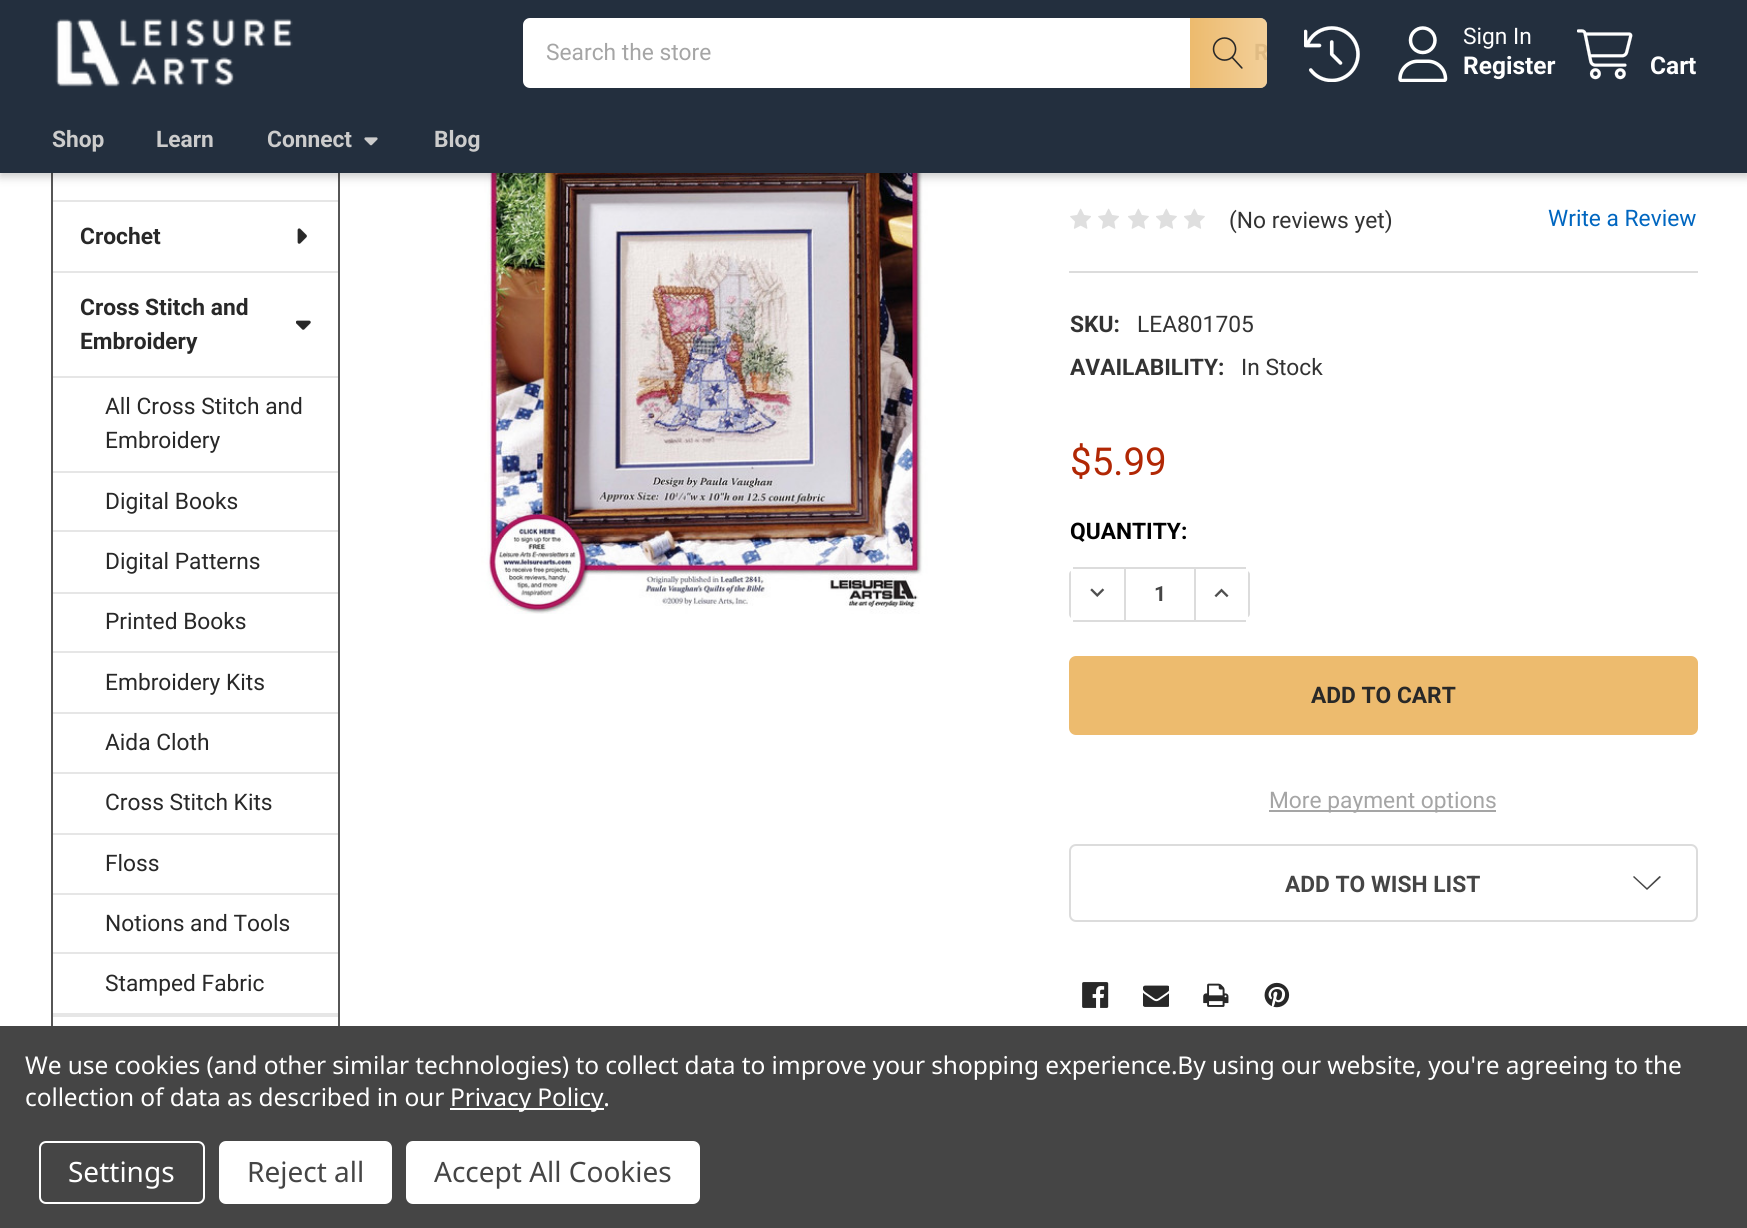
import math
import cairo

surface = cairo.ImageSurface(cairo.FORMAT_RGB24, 1747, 1228)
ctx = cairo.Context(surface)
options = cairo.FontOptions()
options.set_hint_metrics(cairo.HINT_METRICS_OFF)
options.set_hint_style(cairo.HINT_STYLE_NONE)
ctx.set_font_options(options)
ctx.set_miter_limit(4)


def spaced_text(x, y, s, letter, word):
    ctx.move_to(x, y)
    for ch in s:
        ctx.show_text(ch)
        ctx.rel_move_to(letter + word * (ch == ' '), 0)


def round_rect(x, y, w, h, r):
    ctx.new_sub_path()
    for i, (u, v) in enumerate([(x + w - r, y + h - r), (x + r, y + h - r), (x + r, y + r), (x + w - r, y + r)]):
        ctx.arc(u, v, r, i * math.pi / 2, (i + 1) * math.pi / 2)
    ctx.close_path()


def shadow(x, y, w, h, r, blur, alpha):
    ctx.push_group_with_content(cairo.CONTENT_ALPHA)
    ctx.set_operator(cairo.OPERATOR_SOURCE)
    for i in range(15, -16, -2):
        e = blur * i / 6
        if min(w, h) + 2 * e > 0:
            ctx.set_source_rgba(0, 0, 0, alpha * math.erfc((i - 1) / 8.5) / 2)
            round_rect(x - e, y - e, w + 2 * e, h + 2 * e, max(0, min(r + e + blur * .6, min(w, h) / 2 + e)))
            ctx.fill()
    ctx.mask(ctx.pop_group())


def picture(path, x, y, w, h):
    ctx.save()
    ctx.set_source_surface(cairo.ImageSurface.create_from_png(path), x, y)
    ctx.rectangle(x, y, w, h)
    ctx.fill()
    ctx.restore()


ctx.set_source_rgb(1, 1, 1)
ctx.paint()
ctx.rectangle(52, -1, 287, 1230)
ctx.set_source_rgb(0.337, 0.337, 0.337)
ctx.stroke()
picture("img9.png", 465, 173, 479, 441)
ctx.set_source_rgb(0, 0, 0)
shadow(0, 4, 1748, 173, 0, 4.5, 0.2)
ctx.set_source_rgb(0.137, 0.184, 0.243)
ctx.rectangle(0, 0, 1747, 173)
ctx.fill()
picture("img1.png", 55, 18, 238, 69)
ctx.set_source_rgb(1, 1, 1)
round_rect(523, 18, 744, 70, 7)
ctx.fill()
gradient = cairo.LinearGradient(1190, 53, 1267, 53)
gradient.add_color_stop_rgba(0, 0.929, 0.733, 0.431, 1)
gradient.add_color_stop_rgba(1, 0.929, 0.733, 0.431, 0.7)
ctx.set_source(gradient)
ctx.new_path()
ctx.move_to(1190, 18)
ctx.line_to(1260, 18)
ctx.curve_to(1264, 18, 1267, 21, 1267, 25)
ctx.line_to(1267, 81)
ctx.curve_to(1267, 85, 1264, 88, 1260, 88)
ctx.line_to(1190, 88)
ctx.close_path()
ctx.fill()
picture("img2.png", 1212, 37, 31, 32)
ctx.select_font_face("Roboto")
ctx.set_font_size(22.75)
ctx.set_source_rgb(0.647, 0.647, 0.647)
ctx.move_to(546, 60)
ctx.show_text("Search the store")
ctx.save()
round_rect(1190, 18, 77, 70, 7)
ctx.clip()
ctx.select_font_face("Roboto", cairo.FONT_SLANT_NORMAL, cairo.FONT_WEIGHT_BOLD)
ctx.set_source_rgb(0.878, 0.733, 0.514)
ctx.move_to(1254, 60)
ctx.show_text("R")
ctx.restore()
picture("img3.png", 1304, 26, 56, 56)
picture("img4.png", 1398, 26, 50, 56)
ctx.set_source_rgb(1, 1, 1)
ctx.move_to(1463, 44)
ctx.show_text("Sign In")
ctx.select_font_face("Roboto", cairo.FONT_SLANT_NORMAL, cairo.FONT_WEIGHT_BOLD)
ctx.set_font_size(24.5)
ctx.move_to(1463, 74)
ctx.show_text("Register")
picture("img5.png", 1577, 29, 56, 51)
ctx.move_to(1650, 74)
ctx.show_text("Cart")
ctx.set_font_size(22.75)
ctx.set_source_rgb(0.8, 0.8, 0.8)
ctx.move_to(52, 147)
ctx.show_text("Shop")
ctx.move_to(156, 147)
ctx.show_text("Learn")
ctx.move_to(267, 147)
ctx.show_text("Connect")
picture("img6.png", 364, 137, 14, 9)
ctx.move_to(434, 147)
ctx.show_text("Blog")
ctx.set_source_rgb(0.902, 0.902, 0.902)
ctx.rectangle(53, 200, 285, 2)
ctx.fill()
ctx.set_source_rgb(0.157, 0.157, 0.157)
ctx.move_to(80, 244)
ctx.show_text("Crochet")
picture("img7.png", 297, 228, 10, 16)
ctx.set_source_rgb(0.902, 0.902, 0.902)
ctx.rectangle(53, 271, 285, 2)
ctx.fill()
ctx.set_source_rgb(0.157, 0.157, 0.157)
ctx.move_to(80, 315)
ctx.show_text("Cross Stitch and")
picture("img8.png", 296, 320, 15, 10)
ctx.move_to(80, 349)
ctx.show_text("Embroidery")
ctx.set_source_rgb(0.902, 0.902, 0.902)
ctx.rectangle(53, 376, 285, 2)
ctx.fill()
ctx.rectangle(53, 471, 285, 2)
ctx.fill()
ctx.select_font_face("Roboto")
ctx.set_source_rgb(0.157, 0.157, 0.157)
ctx.move_to(105, 414)
ctx.show_text("All Cross Stitch and")
ctx.move_to(105, 448)
ctx.show_text("Embroidery")
ctx.set_source_rgb(0.902, 0.902, 0.902)
ctx.rectangle(53, 530, 285, 2)
ctx.fill()
ctx.set_source_rgb(0.157, 0.157, 0.157)
ctx.move_to(105, 509)
ctx.show_text("Digital Books")
ctx.set_source_rgb(0.902, 0.902, 0.902)
ctx.rectangle(53, 592, 285, 2)
ctx.fill()
ctx.set_source_rgb(0.157, 0.157, 0.157)
ctx.move_to(105, 569)
ctx.show_text("Digital Patterns")
ctx.set_source_rgb(0.902, 0.902, 0.902)
ctx.rectangle(53, 651, 285, 2)
ctx.fill()
ctx.set_source_rgb(0.157, 0.157, 0.157)
ctx.move_to(105, 629)
ctx.show_text("Printed Books")
ctx.set_source_rgb(0.902, 0.902, 0.902)
ctx.rectangle(53, 712, 285, 2)
ctx.fill()
ctx.set_source_rgb(0.157, 0.157, 0.157)
ctx.move_to(105, 690)
ctx.show_text("Embroidery Kits")
ctx.set_source_rgb(0.902, 0.902, 0.902)
ctx.rectangle(53, 772, 285, 2)
ctx.fill()
ctx.set_source_rgb(0.157, 0.157, 0.157)
ctx.move_to(105, 750)
ctx.show_text("Aida Cloth")
ctx.set_source_rgb(0.902, 0.902, 0.902)
ctx.rectangle(53, 833, 285, 2)
ctx.fill()
ctx.set_source_rgb(0.157, 0.157, 0.157)
ctx.move_to(105, 810)
ctx.show_text("Cross Stitch Kits")
ctx.set_source_rgb(0.902, 0.902, 0.902)
ctx.rectangle(53, 893, 285, 2)
ctx.fill()
ctx.set_source_rgb(0.157, 0.157, 0.157)
ctx.move_to(105, 871)
ctx.show_text("Floss")
ctx.set_source_rgb(0.902, 0.902, 0.902)
ctx.rectangle(53, 952, 285, 2)
ctx.fill()
ctx.set_source_rgb(0.157, 0.157, 0.157)
ctx.move_to(105, 931)
ctx.show_text("Notions and Tools")
ctx.set_source_rgb(0.902, 0.902, 0.902)
ctx.rectangle(53, 1013, 285, 4)
ctx.fill()
ctx.set_source_rgb(0.157, 0.157, 0.157)
ctx.move_to(105, 991)
ctx.show_text("Stamped Fabric")
picture("img10.png", 1070, 208, 21, 21)
picture("img10.png", 1098, 208, 21, 21)
picture("img11.png", 1128, 208, 21, 21)
picture("img11.png", 1156, 208, 21, 21)
picture("img11.png", 1184, 208, 21, 21)
ctx.set_source_rgb(0.2, 0.2, 0.2)
ctx.move_to(1229, 228)
ctx.show_text("(No reviews yet)")
ctx.set_source_rgb(0, 0.4, 0.753)
ctx.move_to(1548, 226)
ctx.show_text("Write a Review")
ctx.set_source_rgb(0.863, 0.863, 0.863)
ctx.rectangle(1069, 271, 629, 2)
ctx.fill()
ctx.select_font_face("Roboto", cairo.FONT_SLANT_NORMAL, cairo.FONT_WEIGHT_BOLD)
ctx.set_source_rgb(0.2, 0.2, 0.2)
ctx.move_to(1070, 332)
ctx.show_text("SKU:")
ctx.select_font_face("Roboto")
ctx.move_to(1137, 332)
ctx.show_text("LEA801705")
ctx.select_font_face("Roboto", cairo.FONT_SLANT_NORMAL, cairo.FONT_WEIGHT_BOLD)
ctx.move_to(1070, 375)
ctx.show_text("AVAILABILITY:")
ctx.select_font_face("Roboto")
ctx.move_to(1241, 375)
ctx.show_text("In Stock")
ctx.set_font_size(38.5)
ctx.set_source_rgb(0.694, 0.153, 0.016)
ctx.move_to(1070, 475)
ctx.show_text("$5.99")
ctx.select_font_face("Roboto", cairo.FONT_SLANT_NORMAL, cairo.FONT_WEIGHT_BOLD)
ctx.set_font_size(22.75)
ctx.set_source_rgb(0, 0, 0)
ctx.move_to(1070, 539)
ctx.show_text("QUANTITY:")
ctx.set_source_rgb(0.863, 0.863, 0.863)
ctx.rectangle(1073, 567, 173, 2)
ctx.fill()
ctx.rectangle(1073, 620, 173, 2)
ctx.fill()
ctx.rectangle(1124, 569, 2, 51)
ctx.fill()
ctx.new_path()
ctx.move_to(1071, 618)
ctx.curve_to(1070, 617, 1069, 616, 1069, 614)
ctx.line_to(1069, 574)
ctx.curve_to(1069, 573, 1070, 571, 1071, 571)
ctx.close_path()
ctx.fill()
picture("img12.png", 1090, 588, 15, 9)
ctx.set_font_size(21)
ctx.set_source_rgb(0.271, 0.271, 0.271)
ctx.move_to(1154, 601)
ctx.show_text("1")
ctx.set_source_rgb(0.863, 0.863, 0.863)
ctx.new_path()
ctx.move_to(1248, 571)
ctx.curve_to(1249, 572, 1250, 573, 1250, 574)
ctx.line_to(1250, 614)
ctx.curve_to(1250, 615, 1249, 617, 1248, 617)
ctx.close_path()
ctx.fill()
ctx.rectangle(1194, 569, 2, 51)
ctx.fill()
picture("img13.png", 1214, 588, 15, 10)
ctx.set_source_rgb(0.929, 0.733, 0.431)
round_rect(1070, 657, 627, 77, 6)
ctx.fill_preserve()
ctx.stroke()
ctx.set_font_size(22.75)
ctx.set_source_rgb(0.157, 0.157, 0.157)
ctx.move_to(1311, 703)
ctx.show_text("ADD TO CART")
ctx.set_source_rgb(0.647, 0.647, 0.647)
ctx.rectangle(1269, 810, 227, 2)
ctx.fill()
ctx.select_font_face("Roboto")
ctx.move_to(1269, 808)
ctx.show_text("More payment options")
round_rect(1070, 845, 627, 76, 6)
ctx.set_source_rgb(0.863, 0.863, 0.863)
ctx.stroke()
ctx.select_font_face("Roboto", cairo.FONT_SLANT_NORMAL, cairo.FONT_WEIGHT_BOLD)
ctx.set_source_rgb(0.271, 0.271, 0.271)
ctx.move_to(1285, 892)
ctx.show_text("ADD TO WISH LIST")
ctx.set_fill_rule(cairo.FILL_RULE_EVEN_ODD)
ctx.new_path()
ctx.move_to(1647, 888)
ctx.line_to(1659.5, 876)
ctx.line_to(1661, 877)
ctx.line_to(1647, 890)
ctx.line_to(1633, 877)
ctx.line_to(1634, 876)
ctx.close_path()
ctx.fill()
picture("img14.png", 1082, 982, 27, 26)
picture("img15.png", 1143, 985, 26, 22)
picture("img16.png", 1203, 983, 26, 24)
picture("img17.png", 1264, 982, 26, 26)
ctx.rectangle(0, 1026, 1747, 202)
ctx.fill()
ctx.select_font_face("Noto Sans")
ctx.set_font_size(24.5)
ctx.set_source_rgb(1, 1, 1)
spaced_text(25, 1074, "We use cookies (and other similar technologies) to collect data to improve your shopping experience.By using our website, you're agreeing to the", -0.09, 0)
spaced_text(25, 1106, "collection of data as described in our", -0.09, 0)
ctx.rectangle(450, 1108, 154, 2)
ctx.fill()
spaced_text(450, 1106, "Privacy Policy.", -0.09, 0)
round_rect(40, 1142, 164, 61, 6)
ctx.stroke()
ctx.set_font_size(28)
ctx.move_to(68, 1182)
ctx.show_text("Settings")
round_rect(219, 1141, 173, 63, 7)
ctx.fill()
ctx.set_source_rgb(0.271, 0.271, 0.271)
ctx.move_to(247, 1182)
ctx.show_text("Reject all")
ctx.set_source_rgb(1, 1, 1)
round_rect(406, 1141, 294, 63, 7)
ctx.fill()
ctx.set_source_rgb(0.271, 0.271, 0.271)
ctx.move_to(434, 1182)
ctx.show_text("Accept All Cookies")
surface.write_to_png("page.png")
